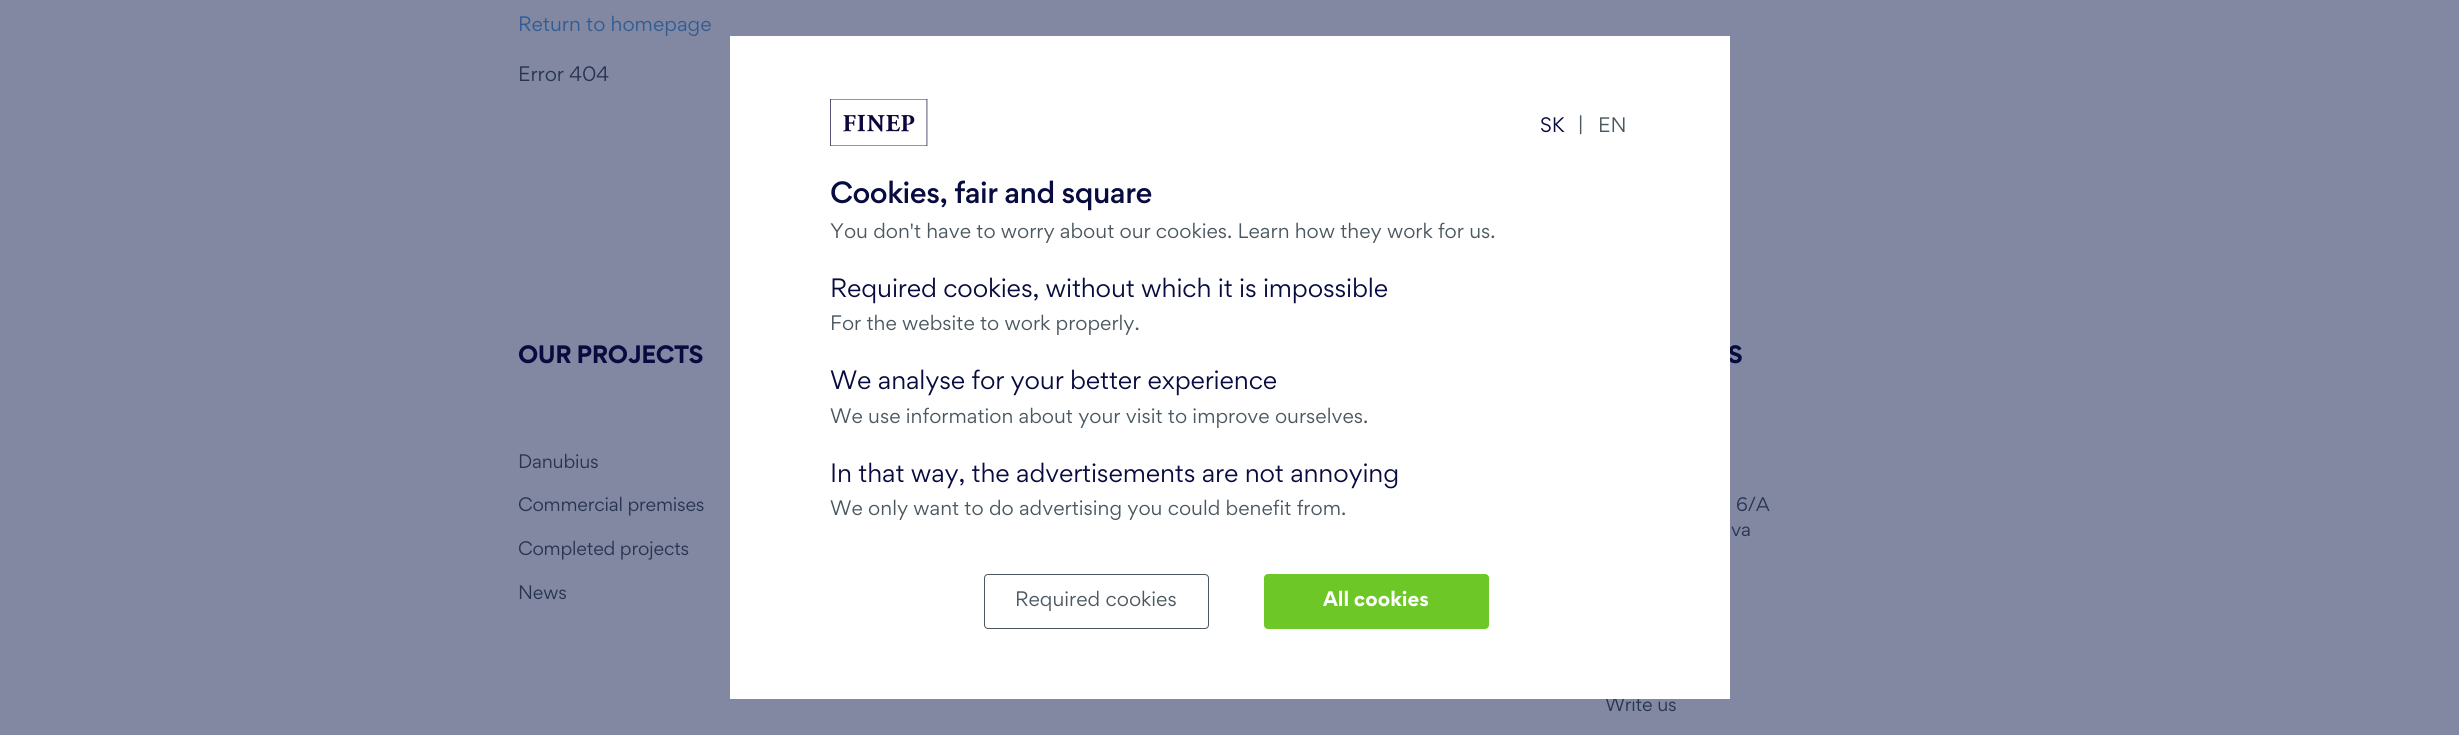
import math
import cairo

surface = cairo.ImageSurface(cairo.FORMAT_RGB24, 2459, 735)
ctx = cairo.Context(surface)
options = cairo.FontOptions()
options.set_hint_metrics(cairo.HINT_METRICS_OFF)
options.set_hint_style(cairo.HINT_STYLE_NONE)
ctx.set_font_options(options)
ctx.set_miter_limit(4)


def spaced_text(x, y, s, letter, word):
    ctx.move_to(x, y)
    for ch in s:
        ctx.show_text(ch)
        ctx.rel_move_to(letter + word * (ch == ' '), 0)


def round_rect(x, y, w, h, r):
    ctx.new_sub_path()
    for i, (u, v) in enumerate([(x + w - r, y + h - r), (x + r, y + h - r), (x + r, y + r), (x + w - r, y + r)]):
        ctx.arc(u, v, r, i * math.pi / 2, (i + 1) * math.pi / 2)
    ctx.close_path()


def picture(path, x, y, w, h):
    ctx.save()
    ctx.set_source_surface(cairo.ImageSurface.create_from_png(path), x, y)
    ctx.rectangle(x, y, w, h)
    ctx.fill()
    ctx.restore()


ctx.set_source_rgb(0.51, 0.533, 0.631)
ctx.paint()
ctx.select_font_face("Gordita")
ctx.set_font_size(18.75)
ctx.set_source_rgb(0.188, 0.361, 0.58)
ctx.move_to(518, 31)
ctx.show_text("Return to homepage")
ctx.set_source_rgb(0.153, 0.204, 0.318)
ctx.move_to(518, 81)
ctx.show_text("Error 404")
ctx.select_font_face("Gordita", cairo.FONT_SLANT_NORMAL, cairo.FONT_WEIGHT_BOLD)
ctx.set_font_size(22.5)
ctx.set_source_rgb(0.035, 0.043, 0.247)
spaced_text(518, 363, "OUR PROJECTS", -0.4, 0)
ctx.select_font_face("Gordita")
ctx.set_font_size(17.5)
ctx.set_source_rgb(0.153, 0.204, 0.318)
spaced_text(518, 468, "Danubius", -0.2, 0)
spaced_text(518, 511, "Commercial premises", -0.2, 0)
spaced_text(518, 555, "Completed projects", -0.2, 0)
spaced_text(518, 599, "News", -0.2, 0)
ctx.select_font_face("Gordita", cairo.FONT_SLANT_NORMAL, cairo.FONT_WEIGHT_BOLD)
ctx.set_font_size(22.5)
ctx.set_source_rgb(0.035, 0.043, 0.247)
spaced_text(1728, 363, "S", -0.4, 0)
ctx.select_font_face("Gordita")
ctx.set_font_size(17.5)
ctx.set_source_rgb(0.153, 0.204, 0.318)
spaced_text(1736, 511, "6/A", -0.2, 0)
spaced_text(1731, 536, "va", -0.2, 0)
spaced_text(1605, 711, "Write us", -0.2, 0)
ctx.set_source_rgb(1, 1, 1)
ctx.rectangle(730, 36, 1000, 663)
ctx.fill()
picture("img1.png", 830, 99, 98, 47)
ctx.set_font_size(18.75)
ctx.set_source_rgb(0.035, 0.043, 0.247)
ctx.move_to(1540, 132)
ctx.show_text("SK")
ctx.set_source_rgb(0.29, 0.341, 0.373)
ctx.move_to(1578, 132)
ctx.show_text("|")
ctx.move_to(1598, 132)
ctx.show_text("EN")
ctx.select_font_face("Gordita Medium")
ctx.set_font_size(27.5)
ctx.set_source_rgb(0.035, 0.043, 0.247)
spaced_text(830, 203, "Cookies, fair and square", -0.5, 0)
ctx.select_font_face("Gordita")
ctx.set_font_size(18.75)
ctx.set_source_rgb(0.29, 0.341, 0.373)
ctx.move_to(830, 238)
ctx.show_text("You don't have to worry about our cookies. Learn how they work for us.")
ctx.set_font_size(23.75)
ctx.set_source_rgb(0.035, 0.043, 0.247)
spaced_text(830, 297, "Required cookies, without which it is impossible", -0.15, 0)
ctx.set_font_size(18.75)
ctx.set_source_rgb(0.29, 0.341, 0.373)
ctx.move_to(830, 330)
ctx.show_text("For the website to work properly.")
ctx.set_font_size(23.75)
ctx.set_source_rgb(0.035, 0.043, 0.247)
spaced_text(830, 389, "We analyse for your better experience", -0.15, 0)
ctx.set_font_size(18.75)
ctx.set_source_rgb(0.29, 0.341, 0.373)
ctx.move_to(830, 423)
ctx.show_text("We use information about your visit to improve ourselves.")
ctx.set_font_size(23.75)
ctx.set_source_rgb(0.035, 0.043, 0.247)
spaced_text(830, 482, "In that way, the advertisements are not annoying", -0.15, 0)
ctx.set_font_size(18.75)
ctx.set_source_rgb(0.29, 0.341, 0.373)
ctx.move_to(830, 515)
ctx.show_text("We only want to do advertising you could benefit from.")
round_rect(984.5, 574.5, 224, 54, 3.5)
ctx.set_line_width(1)
ctx.stroke()
ctx.move_to(1015, 606)
ctx.show_text("Required cookies")
ctx.set_source_rgb(0.427, 0.78, 0.153)
round_rect(1264.5, 574.5, 224, 54, 3.5)
ctx.fill_preserve()
ctx.stroke()
ctx.select_font_face("Gordita", cairo.FONT_SLANT_NORMAL, cairo.FONT_WEIGHT_BOLD)
ctx.set_source_rgb(1, 1, 1)
ctx.move_to(1323, 606)
ctx.show_text("All cookies")
surface.write_to_png("page.png")
